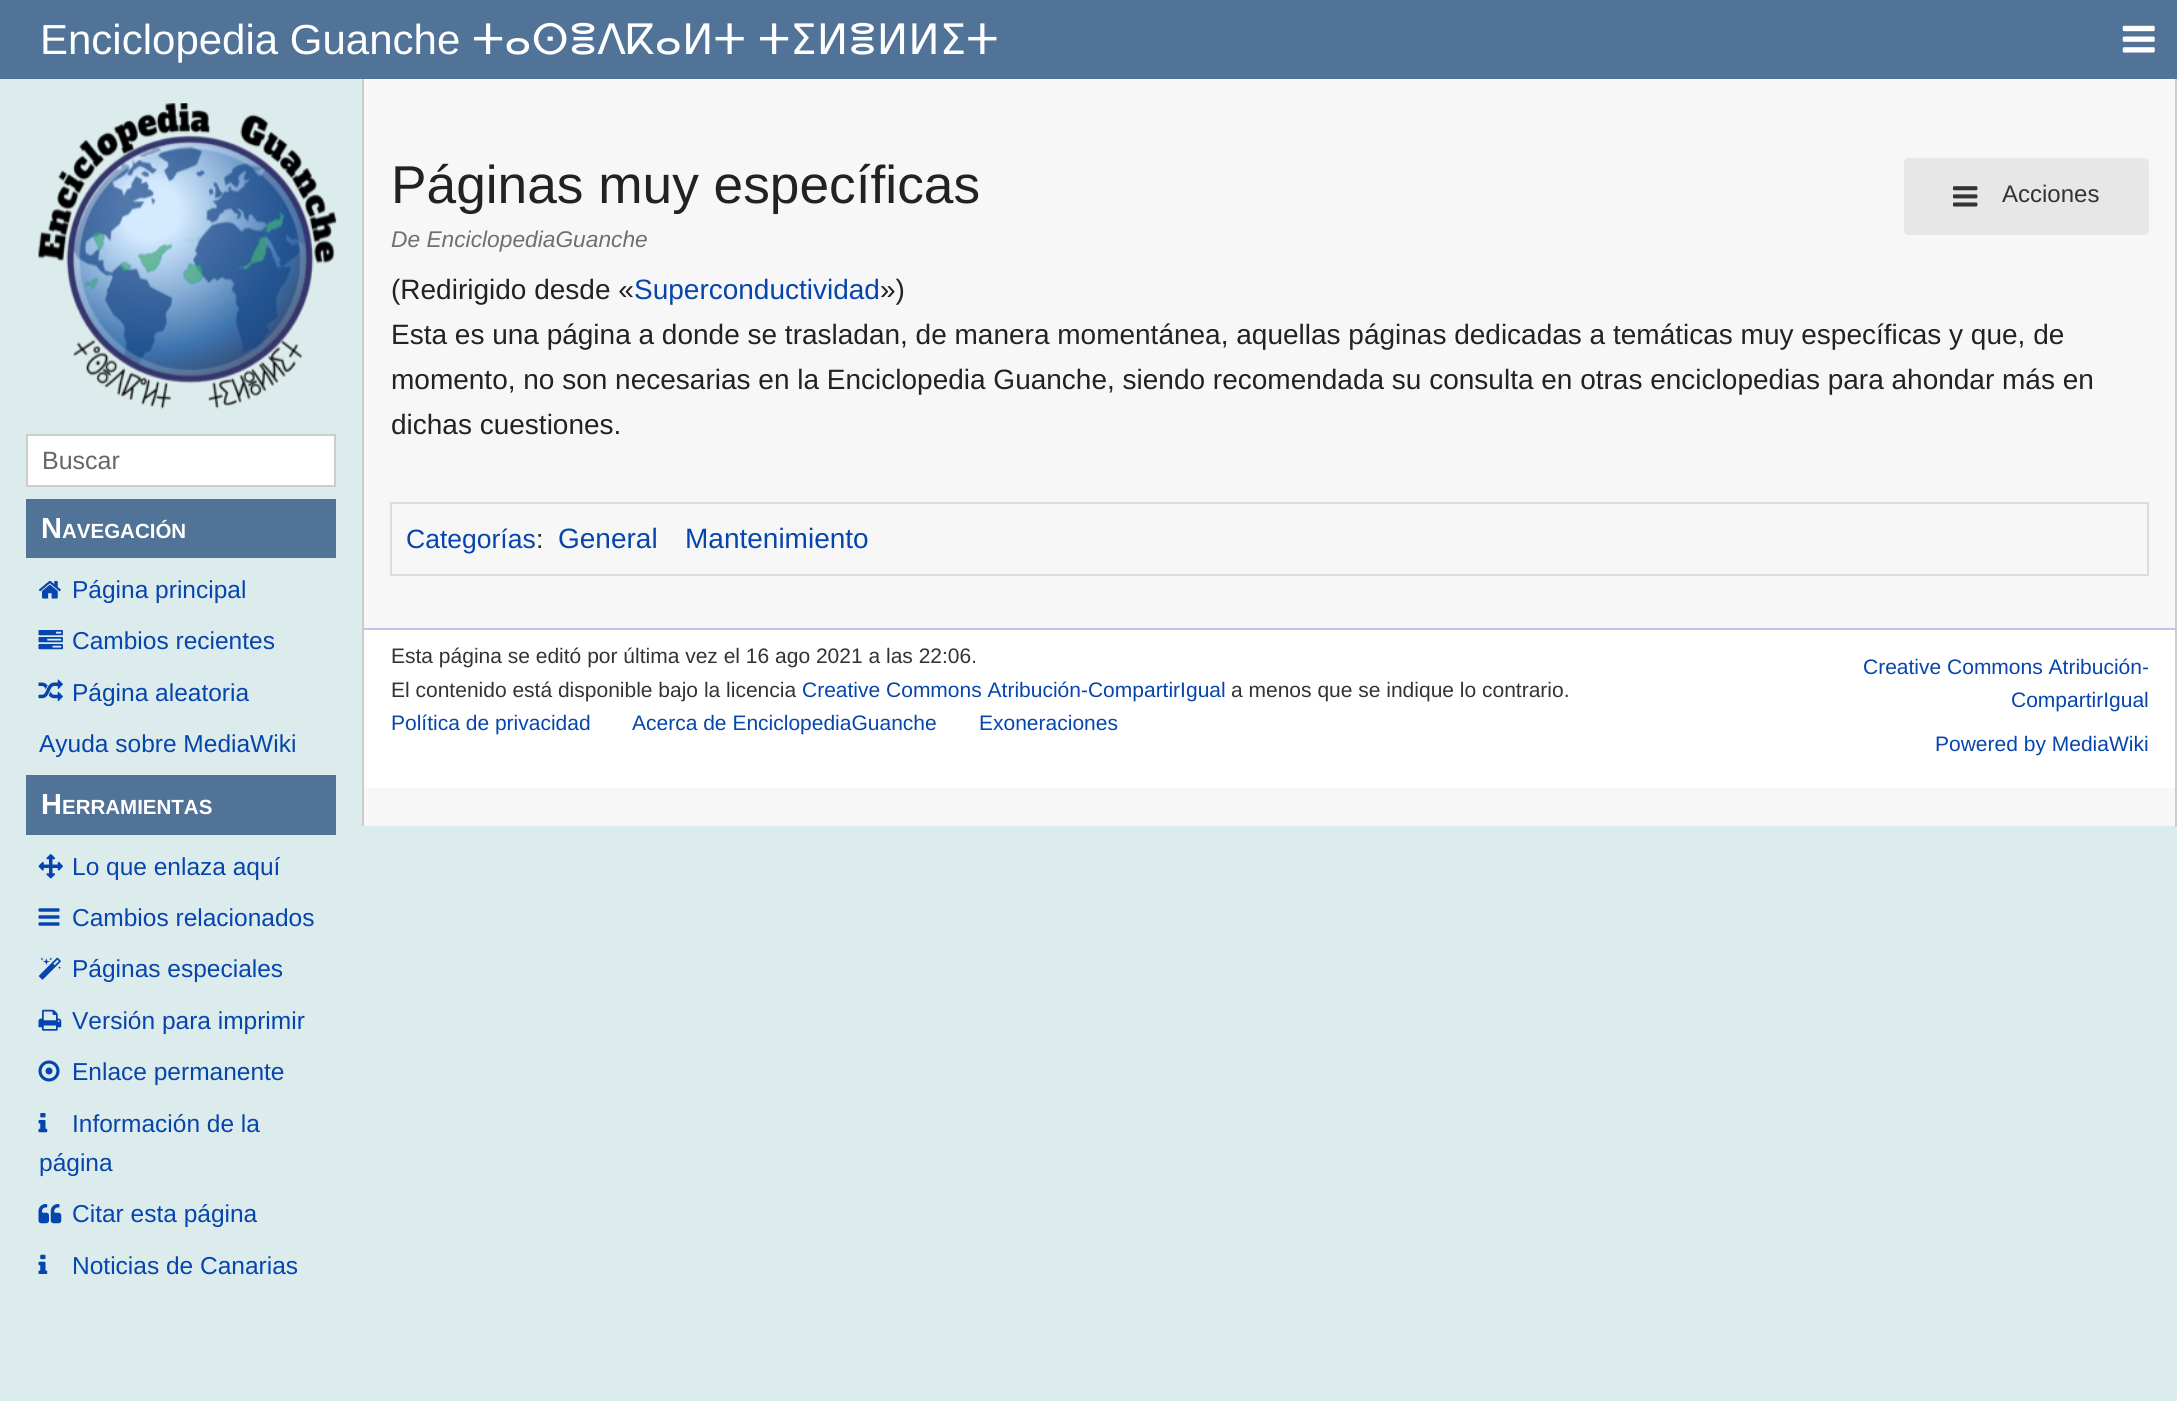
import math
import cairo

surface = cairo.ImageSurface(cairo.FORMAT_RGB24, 2177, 1401)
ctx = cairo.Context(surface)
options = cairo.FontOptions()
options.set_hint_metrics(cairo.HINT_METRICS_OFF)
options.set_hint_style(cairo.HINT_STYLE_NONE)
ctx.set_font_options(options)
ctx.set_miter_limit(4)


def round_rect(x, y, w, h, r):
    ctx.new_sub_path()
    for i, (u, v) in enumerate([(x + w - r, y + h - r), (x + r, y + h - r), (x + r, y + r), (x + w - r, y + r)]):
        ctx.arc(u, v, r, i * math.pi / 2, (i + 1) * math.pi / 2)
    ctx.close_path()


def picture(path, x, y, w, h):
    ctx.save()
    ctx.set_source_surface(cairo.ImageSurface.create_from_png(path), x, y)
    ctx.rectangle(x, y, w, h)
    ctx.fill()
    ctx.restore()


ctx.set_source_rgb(0.863, 0.918, 0.918)
ctx.paint()
ctx.set_source_rgb(0.318, 0.451, 0.596)
ctx.rectangle(0, 0, 2177, 79)
ctx.fill()
ctx.select_font_face("Liberation Sans")
ctx.set_font_size(42)
ctx.set_source_rgb(1, 1, 1)
ctx.move_to(40, 54)
ctx.show_text("Enciclopedia Guanche")
ctx.select_font_face("DejaVu Sans")
ctx.move_to(472, 54)
ctx.show_text("ⵜⴰⵙⴻⴷⴽⴰⵍⵜ")
ctx.move_to(758, 54)
ctx.show_text("ⵜⵉⵍⴻⵍⵍⵉⵜ")
picture("img1.png", 2122, 25, 33, 28)
picture("img2.png", 38, 103, 299, 306)
ctx.rectangle(27, 435, 308, 51)
ctx.fill_preserve()
ctx.set_source_rgb(0.8, 0.8, 0.8)
ctx.stroke()
ctx.select_font_face("Liberation Sans")
ctx.set_font_size(25)
ctx.set_source_rgb(0.4, 0.4, 0.4)
ctx.move_to(42, 469)
ctx.show_text("Buscar")
ctx.set_source_rgb(0.318, 0.451, 0.596)
ctx.rectangle(26, 499, 310, 59)
ctx.fill()
ctx.select_font_face("Liberation Sans", cairo.FONT_SLANT_NORMAL, cairo.FONT_WEIGHT_BOLD)
ctx.set_font_size(29)
ctx.set_source_rgb(1, 1, 1)
ctx.move_to(41, 538)
ctx.show_text("N")
ctx.set_font_size(20.5)
ctx.move_to(62, 538)
ctx.show_text("AVEGACIÓN")
picture("img3.png", 38, 581, 23, 18)
ctx.select_font_face("Liberation Sans")
ctx.set_font_size(24.5)
ctx.set_source_rgb(0.024, 0.271, 0.678)
ctx.move_to(72, 598)
ctx.show_text("Página principal")
picture("img4.png", 38, 630, 25, 20)
ctx.move_to(72, 649)
ctx.show_text("Cambios recientes")
picture("img5.png", 38, 679, 25, 23)
ctx.move_to(72, 701)
ctx.show_text("Página aleatoria")
ctx.move_to(39, 752)
ctx.show_text("Ayuda sobre MediaWiki")
ctx.set_source_rgb(0.318, 0.451, 0.596)
ctx.rectangle(26, 775, 310, 60)
ctx.fill()
ctx.select_font_face("Liberation Sans", cairo.FONT_SLANT_NORMAL, cairo.FONT_WEIGHT_BOLD)
ctx.set_font_size(29)
ctx.set_source_rgb(1, 1, 1)
ctx.move_to(41, 814)
ctx.show_text("H")
ctx.set_font_size(20.5)
ctx.move_to(62, 814)
ctx.show_text("ERRAMIENTAS")
picture("img6.png", 38, 854, 25, 25)
ctx.select_font_face("Liberation Sans")
ctx.set_font_size(24.5)
ctx.set_source_rgb(0.024, 0.271, 0.678)
ctx.move_to(72, 875)
ctx.show_text("Lo que enlaza aquí")
picture("img7.png", 38, 908, 22, 18)
ctx.move_to(72, 926)
ctx.show_text("Cambios relacionados")
picture("img8.png", 38, 957, 23, 23)
ctx.move_to(72, 977)
ctx.show_text("Páginas especiales")
picture("img9.png", 38, 1009, 24, 22)
ctx.move_to(72, 1029)
ctx.show_text("Versión para imprimir")
picture("img10.png", 38, 1060, 22, 22)
ctx.move_to(72, 1080)
ctx.show_text("Enlace permanente")
picture("img11.png", 38, 1113, 10, 20)
ctx.move_to(72, 1132)
ctx.show_text("Información de la")
ctx.move_to(39, 1171)
ctx.show_text("página")
picture("img12.png", 38, 1204, 24, 20)
ctx.move_to(72, 1222)
ctx.show_text("Citar esta página")
picture("img13.png", 38, 1254, 10, 20)
ctx.move_to(72, 1274)
ctx.show_text("Noticias de Canarias")
ctx.set_source_rgb(0.965, 0.965, 0.965)
ctx.rectangle(364, 79, 1811, 747)
ctx.fill()
ctx.set_source_rgb(0.8, 0.8, 0.8)
ctx.rectangle(2175, 79, 2, 747)
ctx.fill()
ctx.rectangle(362, 79, 2, 747)
ctx.fill()
ctx.set_font_size(53.25)
ctx.set_source_rgb(0.133, 0.133, 0.133)
ctx.move_to(391, 203)
ctx.show_text("Páginas muy específicas")
ctx.select_font_face("Liberation Sans", cairo.FONT_SLANT_ITALIC)
ctx.set_font_size(22.75)
ctx.set_source_rgb(0.435, 0.435, 0.435)
ctx.move_to(391, 247)
ctx.show_text("De EnciclopediaGuanche")
ctx.select_font_face("Liberation Sans")
ctx.set_font_size(28)
ctx.set_source_rgb(0.133, 0.133, 0.133)
ctx.move_to(391, 299)
ctx.show_text("(Redirigido desde «")
ctx.set_source_rgb(0.024, 0.271, 0.678)
ctx.move_to(634, 299)
ctx.show_text("Superconductividad")
ctx.set_source_rgb(0.133, 0.133, 0.133)
ctx.move_to(880, 299)
ctx.show_text("»)")
ctx.move_to(391, 344)
ctx.show_text("Esta es una página a donde se trasladan, de manera momentánea, aquellas páginas dedicadas a temáticas muy específicas y que, de")
ctx.move_to(391, 389)
ctx.show_text("momento, no son necesarias en la Enciclopedia Guanche, siendo recomendada su consulta en otras enciclopedias para ahondar más en")
ctx.move_to(391, 434)
ctx.show_text("dichas cuestiones.")
ctx.set_source_rgb(0.906, 0.906, 0.906)
round_rect(1904, 158, 245, 77, 5)
ctx.fill()
picture("img14.png", 1953, 186, 25, 21)
ctx.set_font_size(24)
ctx.set_source_rgb(0.2, 0.2, 0.2)
ctx.move_to(2002, 202)
ctx.show_text("Acciones")
ctx.rectangle(391, 503, 1757, 72)
ctx.set_source_rgb(0.867, 0.867, 0.867)
ctx.stroke()
ctx.set_font_size(26.5)
ctx.set_source_rgb(0.024, 0.271, 0.678)
ctx.move_to(406, 548)
ctx.show_text("Categorías")
ctx.set_source_rgb(0.133, 0.133, 0.133)
ctx.move_to(536, 548)
ctx.show_text(":")
ctx.set_font_size(28)
ctx.set_source_rgb(0.024, 0.271, 0.678)
ctx.move_to(558, 548)
ctx.show_text("General")
ctx.move_to(685, 548)
ctx.show_text("Mantenimiento")
ctx.set_source_rgb(1, 1, 1)
ctx.rectangle(364, 630, 1811, 158)
ctx.fill()
ctx.set_source_rgb(0.765, 0.765, 0.898)
ctx.rectangle(364, 628, 1811, 2)
ctx.fill()
ctx.set_font_size(21)
ctx.set_source_rgb(0.2, 0.2, 0.2)
ctx.move_to(391, 663)
ctx.show_text("Esta página se editó por última vez el 16 ago 2021 a las 22:06.")
ctx.move_to(391, 697)
ctx.show_text("El contenido está disponible bajo la licencia")
ctx.set_source_rgb(0.024, 0.271, 0.678)
ctx.move_to(802, 697)
ctx.show_text("Creative Commons Atribución-CompartirIgual")
ctx.set_source_rgb(0.2, 0.2, 0.2)
ctx.move_to(1231, 697)
ctx.show_text("a menos que se indique lo contrario.")
ctx.set_source_rgb(0.024, 0.271, 0.678)
ctx.move_to(391, 730)
ctx.show_text("Política de privacidad")
ctx.move_to(632, 730)
ctx.show_text("Acerca de EnciclopediaGuanche")
ctx.move_to(979, 730)
ctx.show_text("Exoneraciones")
ctx.move_to(1863, 674)
ctx.show_text("Creative Commons Atribución-")
ctx.move_to(2011, 707)
ctx.show_text("CompartirIgual")
ctx.move_to(1935, 751)
ctx.show_text("Powered by MediaWiki")
surface.write_to_png("page.png")
